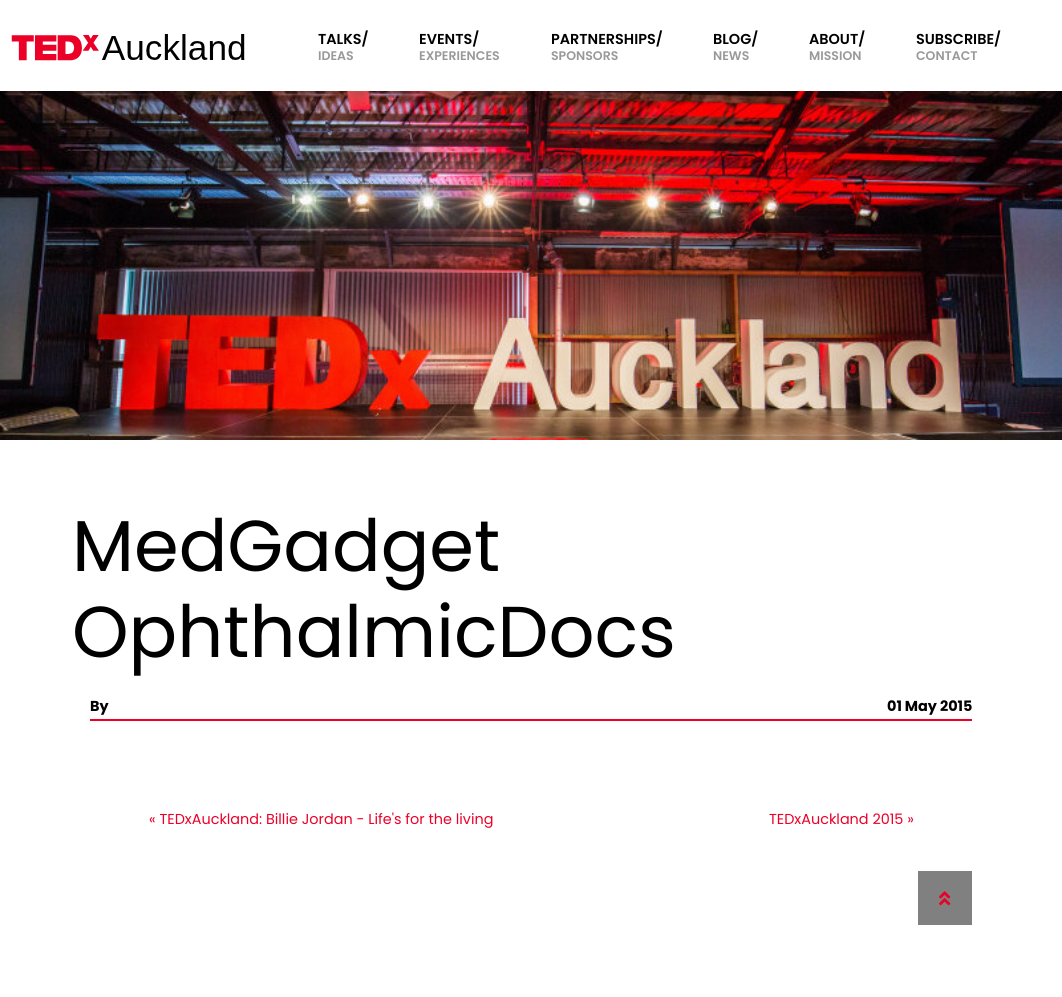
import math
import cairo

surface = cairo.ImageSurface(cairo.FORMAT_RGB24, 1062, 997)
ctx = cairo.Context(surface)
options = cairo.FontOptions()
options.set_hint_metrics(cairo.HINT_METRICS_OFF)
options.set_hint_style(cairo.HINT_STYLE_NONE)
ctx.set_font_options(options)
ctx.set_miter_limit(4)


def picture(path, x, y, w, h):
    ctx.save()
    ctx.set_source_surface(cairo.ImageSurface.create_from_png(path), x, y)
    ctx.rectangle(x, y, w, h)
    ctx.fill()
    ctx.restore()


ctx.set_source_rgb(1, 1, 1)
ctx.paint()
picture("img1.png", 11, 34, 234, 27)
ctx.select_font_face("Poppins SemiBold")
ctx.set_font_size(14.4)
ctx.set_source_rgb(0, 0, 0)
ctx.move_to(318, 44)
ctx.show_text("TALKS/")
ctx.set_font_size(12.5)
ctx.set_source_rgb(0.6, 0.6, 0.6)
ctx.move_to(318, 60)
ctx.show_text("IDEAS")
ctx.set_font_size(14.4)
ctx.set_source_rgb(0, 0, 0)
ctx.move_to(419, 44)
ctx.show_text("EVENTS/")
ctx.set_font_size(12.5)
ctx.set_source_rgb(0.6, 0.6, 0.6)
ctx.move_to(419, 60)
ctx.show_text("EXPERIENCES")
ctx.set_font_size(14.4)
ctx.set_source_rgb(0, 0, 0)
ctx.move_to(551, 44)
ctx.show_text("PARTNERSHIPS/")
ctx.set_font_size(12.5)
ctx.set_source_rgb(0.6, 0.6, 0.6)
ctx.move_to(551, 60)
ctx.show_text("SPONSORS")
ctx.set_font_size(14.4)
ctx.set_source_rgb(0, 0, 0)
ctx.move_to(713, 44)
ctx.show_text("BLOG/")
ctx.set_font_size(12.5)
ctx.set_source_rgb(0.6, 0.6, 0.6)
ctx.move_to(713, 60)
ctx.show_text("NEWS")
ctx.set_font_size(14.4)
ctx.set_source_rgb(0, 0, 0)
ctx.move_to(809, 44)
ctx.show_text("ABOUT/")
ctx.set_font_size(12.5)
ctx.set_source_rgb(0.6, 0.6, 0.6)
ctx.move_to(809, 60)
ctx.show_text("MISSION")
ctx.set_font_size(14.4)
ctx.set_source_rgb(0, 0, 0)
ctx.move_to(916, 44)
ctx.show_text("SUBSCRIBE/")
ctx.set_font_size(12.5)
ctx.set_source_rgb(0.6, 0.6, 0.6)
ctx.move_to(916, 60)
ctx.show_text("CONTACT")
picture("img2.png", 0, 91, 1062, 349)
ctx.select_font_face("Poppins")
ctx.set_font_size(72)
ctx.set_source_rgb(0, 0, 0)
ctx.move_to(72, 571)
ctx.show_text("MedGadget")
ctx.move_to(72, 657)
ctx.show_text("OphthalmicDocs")
ctx.set_source_rgb(0.922, 0, 0.157)
ctx.rectangle(90, 719, 882, 2)
ctx.fill()
ctx.select_font_face("Poppins", cairo.FONT_SLANT_NORMAL, cairo.FONT_WEIGHT_BOLD)
ctx.set_font_size(14.4)
ctx.set_source_rgb(0, 0, 0)
ctx.move_to(90, 711)
ctx.show_text("By")
ctx.move_to(887, 711)
ctx.show_text("01 May 2015")
ctx.select_font_face("Poppins")
ctx.set_source_rgb(0.922, 0, 0.157)
ctx.move_to(149, 824)
ctx.show_text("« TEDxAuckland: Billie Jordan - Life's for the living")
ctx.move_to(769, 824)
ctx.show_text("TEDxAuckland 2015 »")
ctx.set_source_rgb(0.502, 0.502, 0.502)
ctx.rectangle(918, 871, 54, 54)
ctx.fill()
picture("img3.png", 939, 891, 12, 15)
surface.write_to_png("page.png")
